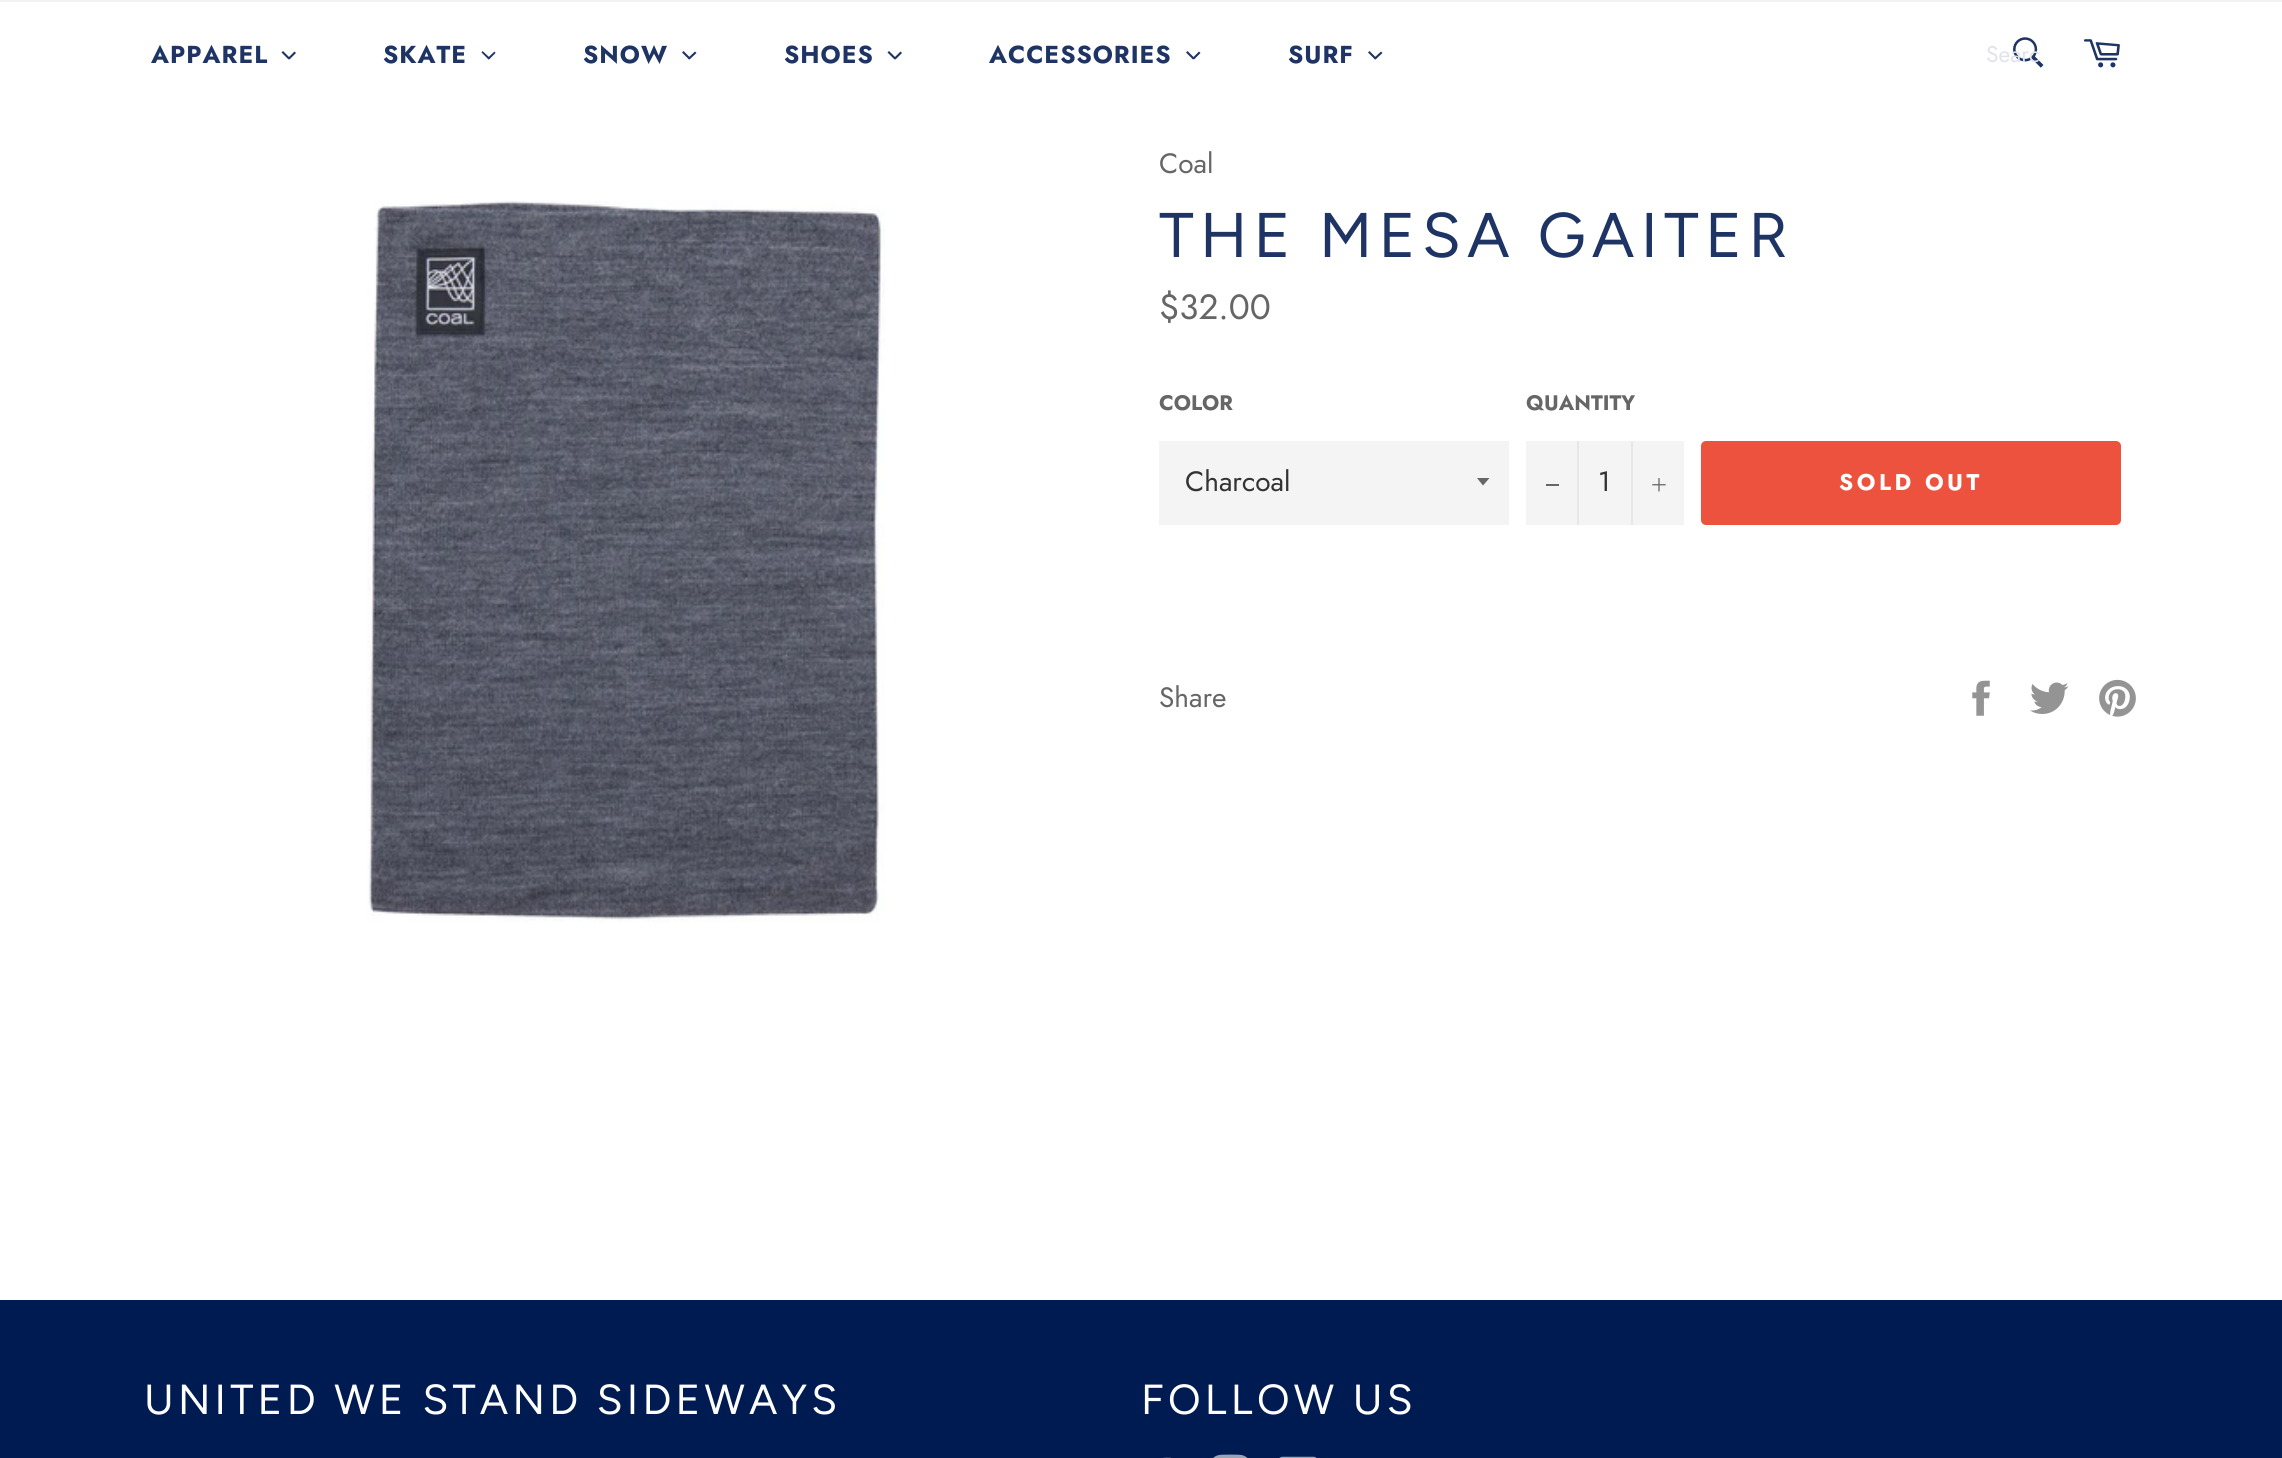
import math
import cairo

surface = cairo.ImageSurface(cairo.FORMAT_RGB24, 2282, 1458)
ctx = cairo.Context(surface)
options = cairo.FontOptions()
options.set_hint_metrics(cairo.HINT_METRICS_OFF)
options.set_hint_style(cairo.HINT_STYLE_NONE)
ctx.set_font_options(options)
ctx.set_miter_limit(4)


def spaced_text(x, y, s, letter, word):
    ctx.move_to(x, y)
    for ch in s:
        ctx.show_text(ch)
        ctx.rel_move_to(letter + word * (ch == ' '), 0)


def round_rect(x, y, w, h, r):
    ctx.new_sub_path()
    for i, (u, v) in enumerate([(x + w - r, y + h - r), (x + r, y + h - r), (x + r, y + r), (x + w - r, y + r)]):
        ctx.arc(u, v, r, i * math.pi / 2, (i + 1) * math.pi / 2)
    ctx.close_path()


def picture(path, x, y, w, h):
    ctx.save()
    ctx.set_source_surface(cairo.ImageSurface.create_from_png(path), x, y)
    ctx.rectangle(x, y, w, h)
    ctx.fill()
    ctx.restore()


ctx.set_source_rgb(1, 1, 1)
ctx.paint()
ctx.set_source_rgb(0.949, 0.949, 0.949)
ctx.rectangle(0, 0, 2282, 2)
ctx.fill()
ctx.select_font_face("Jost", cairo.FONT_SLANT_NORMAL, cairo.FONT_WEIGHT_BOLD)
ctx.set_font_size(24.5)
ctx.set_source_rgb(0.118, 0.204, 0.396)
spaced_text(151, 63, "APPAREL", 1, 0)
ctx.new_path()
ctx.move_to(294.5, 51.5)
ctx.line_to(296, 53)
ctx.line_to(289.5, 59.5)
ctx.line_to(288, 58)
ctx.close_path()
ctx.fill()
ctx.new_path()
ctx.move_to(283, 51)
ctx.line_to(290, 58)
ctx.line_to(288.5, 59.5)
ctx.line_to(281.5, 52.5)
ctx.close_path()
ctx.fill()
spaced_text(383, 63, "SKATE", 1, 0)
ctx.new_path()
ctx.move_to(494.5, 51.5)
ctx.line_to(495.5, 53)
ctx.line_to(489, 59.5)
ctx.line_to(487.5, 58)
ctx.close_path()
ctx.fill()
ctx.new_path()
ctx.move_to(482.5, 51)
ctx.line_to(490, 58)
ctx.line_to(488.5, 59.5)
ctx.line_to(481.5, 52.5)
ctx.close_path()
ctx.fill()
spaced_text(583, 63, "SNOW", 1, 0)
ctx.new_path()
ctx.move_to(695, 51.5)
ctx.line_to(696.5, 53)
ctx.line_to(689.5, 59.5)
ctx.line_to(688, 58)
ctx.close_path()
ctx.fill()
ctx.new_path()
ctx.move_to(683.5, 51)
ctx.line_to(690.5, 58)
ctx.line_to(689, 59.5)
ctx.line_to(682, 52.5)
ctx.close_path()
ctx.fill()
spaced_text(784, 63, "SHOES", 1, 0)
ctx.new_path()
ctx.move_to(900.5, 51.5)
ctx.line_to(902, 53)
ctx.line_to(895.5, 59.5)
ctx.line_to(894, 58)
ctx.close_path()
ctx.fill()
ctx.new_path()
ctx.move_to(889, 51)
ctx.line_to(896, 58)
ctx.line_to(894.5, 59.5)
ctx.line_to(887.5, 52.5)
ctx.close_path()
ctx.fill()
spaced_text(989, 63, "ACCESSORIES", 1, 0)
ctx.new_path()
ctx.move_to(1199, 51.5)
ctx.line_to(1200.5, 53)
ctx.line_to(1194, 59.5)
ctx.line_to(1192.5, 58)
ctx.close_path()
ctx.fill()
ctx.new_path()
ctx.move_to(1187.5, 51)
ctx.line_to(1194.5, 58)
ctx.line_to(1193, 59.5)
ctx.line_to(1186, 52.5)
ctx.close_path()
ctx.fill()
spaced_text(1288, 63, "SURF", 1, 0)
ctx.new_path()
ctx.move_to(1381, 51.5)
ctx.line_to(1382.5, 53)
ctx.line_to(1375.5, 59.5)
ctx.line_to(1374, 58)
ctx.close_path()
ctx.fill()
ctx.new_path()
ctx.move_to(1369.5, 51)
ctx.line_to(1376.5, 58)
ctx.line_to(1375, 59.5)
ctx.line_to(1368, 52.5)
ctx.close_path()
ctx.fill()
picture("img1.png", 2013, 37, 31, 31)
ctx.select_font_face("Jost")
ctx.set_font_size(22.75)
ctx.set_source_rgb(0.878, 0.89, 0.918)
ctx.move_to(1986, 62)
ctx.show_text("Searc")
picture("img2.png", 2083, 39, 37, 29)
picture("img3.png", 367, 200, 518, 722)
ctx.set_font_size(28)
ctx.set_source_rgb(0.4, 0.4, 0.4)
ctx.move_to(1159, 173)
ctx.show_text("Coal")
ctx.select_font_face("Figtree")
ctx.set_font_size(63)
ctx.set_source_rgb(0.118, 0.204, 0.396)
spaced_text(1159, 257, "THE MESA GAITER", 6.25, 0)
ctx.select_font_face("Jost")
ctx.set_font_size(35)
ctx.set_source_rgb(0.4, 0.4, 0.4)
ctx.move_to(1159, 319)
ctx.show_text("$32.00")
ctx.select_font_face("Jost", cairo.FONT_SLANT_NORMAL, cairo.FONT_WEIGHT_BOLD)
ctx.set_font_size(21)
ctx.move_to(1159, 410)
ctx.show_text("COLOR")
ctx.set_source_rgb(0.957, 0.957, 0.957)
ctx.rectangle(1159, 441, 350, 84)
ctx.fill()
ctx.set_source_rgb(0.4, 0.4, 0.4)
ctx.new_path()
ctx.move_to(1477, 478)
ctx.line_to(1483, 485.5)
ctx.line_to(1489.5, 478)
ctx.close_path()
ctx.fill()
ctx.select_font_face("Jost")
ctx.set_font_size(28)
ctx.set_source_rgb(0.2, 0.2, 0.2)
ctx.move_to(1185, 491)
ctx.show_text("Charcoal")
ctx.select_font_face("Jost", cairo.FONT_SLANT_NORMAL, cairo.FONT_WEIGHT_BOLD)
ctx.set_font_size(21)
ctx.set_source_rgb(0.4, 0.4, 0.4)
ctx.move_to(1526, 410)
ctx.show_text("QUANTITY")
ctx.set_source_rgb(0.957, 0.957, 0.957)
ctx.rectangle(1526, 441, 158, 84)
ctx.fill()
ctx.set_source_rgb(0.906, 0.906, 0.906)
ctx.rectangle(1577, 441, 2, 84)
ctx.fill()
ctx.set_source_rgb(0.4, 0.4, 0.4)
ctx.rectangle(1546, 484, 13, 2)
ctx.fill()
ctx.select_font_face("Jost")
ctx.set_font_size(28)
ctx.set_source_rgb(0.2, 0.2, 0.2)
ctx.move_to(1598, 491)
ctx.show_text("1")
ctx.set_source_rgb(0.906, 0.906, 0.906)
ctx.rectangle(1631, 441, 2, 84)
ctx.fill()
picture("img4.png", 1652, 478, 14, 14)
ctx.set_source_rgb(0.925, 0.322, 0.243)
round_rect(1701, 441, 420, 84, 5)
ctx.fill()
ctx.select_font_face("Jost", cairo.FONT_SLANT_NORMAL, cairo.FONT_WEIGHT_BOLD)
ctx.set_font_size(22.75)
ctx.set_source_rgb(1, 1, 1)
spaced_text(1839, 490, "SOLD OUT", 3.5, 0)
ctx.select_font_face("Jost")
ctx.set_font_size(28)
ctx.set_source_rgb(0.4, 0.4, 0.4)
ctx.move_to(1159, 707)
ctx.show_text("Share")
picture("img5.png", 1972, 680, 18, 36)
picture("img6.png", 2030, 682, 39, 32)
picture("img7.png", 2099, 679, 37, 38)
ctx.set_source_rgb(0, 0.106, 0.318)
ctx.rectangle(0, 1300, 2282, 158)
ctx.fill()
ctx.select_font_face("Figtree")
ctx.set_font_size(42)
ctx.set_source_rgb(1, 1, 1)
spaced_text(144, 1414, "UNITED WE STAND SIDEWAYS", 4.2, 0)
spaced_text(1141, 1414, "FOLLOW US", 4.2, 0)
picture("img8.png", 1163, 1457, 8, 1)
picture("img9.png", 1213, 1454, 35, 4)
picture("img10.png", 1279, 1456, 38, 2)
surface.write_to_png("page.png")
